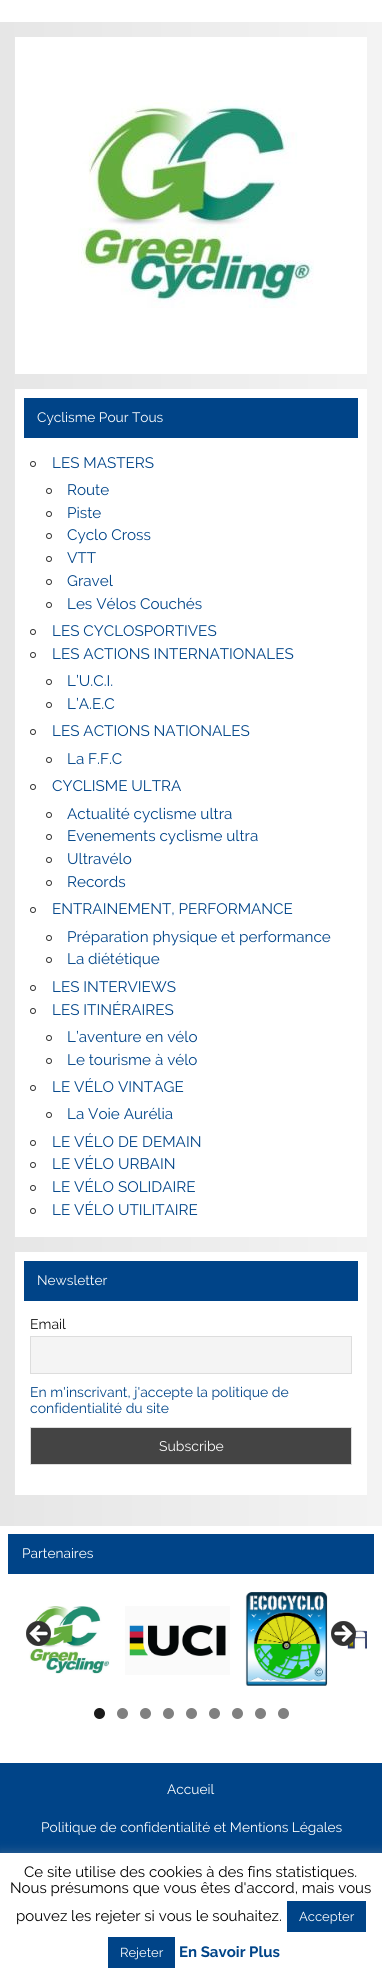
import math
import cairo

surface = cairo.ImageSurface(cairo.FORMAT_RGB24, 382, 1980)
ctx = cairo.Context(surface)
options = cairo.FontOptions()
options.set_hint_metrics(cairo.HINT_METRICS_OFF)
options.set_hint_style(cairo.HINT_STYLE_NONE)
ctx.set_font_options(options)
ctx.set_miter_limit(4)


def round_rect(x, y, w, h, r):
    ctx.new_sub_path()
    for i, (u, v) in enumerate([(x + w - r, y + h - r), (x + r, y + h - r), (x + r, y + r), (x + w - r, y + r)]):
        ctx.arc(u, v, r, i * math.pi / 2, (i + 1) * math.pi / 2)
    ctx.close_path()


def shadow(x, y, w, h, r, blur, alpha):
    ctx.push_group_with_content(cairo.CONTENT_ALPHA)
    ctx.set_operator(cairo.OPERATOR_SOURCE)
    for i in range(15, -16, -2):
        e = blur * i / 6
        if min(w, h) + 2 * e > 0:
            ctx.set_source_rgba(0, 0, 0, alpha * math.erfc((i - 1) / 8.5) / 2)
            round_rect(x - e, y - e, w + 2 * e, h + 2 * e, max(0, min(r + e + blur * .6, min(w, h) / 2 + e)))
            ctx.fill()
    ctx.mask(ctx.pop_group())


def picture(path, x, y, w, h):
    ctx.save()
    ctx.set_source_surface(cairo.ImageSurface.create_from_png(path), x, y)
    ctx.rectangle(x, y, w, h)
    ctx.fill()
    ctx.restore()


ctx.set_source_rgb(1, 1, 1)
ctx.paint()
gradient = cairo.LinearGradient(0, 774, 382, 774)
gradient.add_color_stop_rgba(0, 0.902, 0.902, 0.902, 1)
gradient.add_color_stop_rgba(1, 0.953, 0.953, 0.953, 1)
ctx.set_source(gradient)
ctx.rectangle(0, 22, 382, 1504)
ctx.fill()
ctx.set_source_rgb(1, 1, 1)
ctx.rectangle(15, 37, 352, 337)
ctx.fill()
picture("img1.png", 78, 100, 236, 208)
ctx.rectangle(15, 389, 352, 848)
ctx.fill()
ctx.set_source_rgb(0, 0.267, 0.533)
ctx.rectangle(24, 398, 334, 40)
ctx.fill()
ctx.select_font_face("Raleway")
ctx.set_font_size(13.7)
ctx.set_source_rgb(1, 1, 1)
ctx.move_to(37, 422)
ctx.show_text("Cyclisme Pour Tous")
ctx.new_path()
ctx.arc(33, 464, 2.5, 0, 2 * math.pi)
ctx.set_source_rgb(0.2, 0.2, 0.2)
ctx.set_line_width(1)
ctx.stroke()
ctx.set_font_size(15.25)
ctx.set_source_rgb(0, 0.267, 0.533)
ctx.move_to(52, 468)
ctx.show_text("LES MASTERS")
ctx.new_path()
ctx.arc(49, 491, 2.5, 0, 2 * math.pi)
ctx.set_source_rgb(0.2, 0.2, 0.2)
ctx.stroke()
ctx.set_source_rgb(0, 0.267, 0.533)
ctx.move_to(67, 495)
ctx.show_text("Route")
ctx.new_path()
ctx.arc(49, 514, 2.5, 0, 2 * math.pi)
ctx.set_source_rgb(0.2, 0.2, 0.2)
ctx.stroke()
ctx.set_source_rgb(0, 0.267, 0.533)
ctx.move_to(67, 518)
ctx.show_text("Piste")
ctx.new_path()
ctx.arc(49, 536, 2.5, 0, 2 * math.pi)
ctx.set_source_rgb(0.2, 0.2, 0.2)
ctx.stroke()
ctx.set_source_rgb(0, 0.267, 0.533)
ctx.move_to(67, 540)
ctx.show_text("Cyclo Cross")
ctx.new_path()
ctx.arc(49, 559, 2.5, 0, 2 * math.pi)
ctx.set_source_rgb(0.2, 0.2, 0.2)
ctx.stroke()
ctx.set_source_rgb(0, 0.267, 0.533)
ctx.move_to(67, 563)
ctx.show_text("VTT")
ctx.new_path()
ctx.arc(49, 582, 2.5, 0, 2 * math.pi)
ctx.set_source_rgb(0.2, 0.2, 0.2)
ctx.stroke()
ctx.set_source_rgb(0, 0.267, 0.533)
ctx.move_to(67, 586)
ctx.show_text("Gravel")
ctx.new_path()
ctx.arc(49, 605, 2.5, 0, 2 * math.pi)
ctx.set_source_rgb(0.2, 0.2, 0.2)
ctx.stroke()
ctx.set_source_rgb(0, 0.267, 0.533)
ctx.move_to(67, 609)
ctx.show_text("Les Vélos Couchés")
ctx.new_path()
ctx.arc(33, 632, 2.5, 0, 2 * math.pi)
ctx.set_source_rgb(0.2, 0.2, 0.2)
ctx.stroke()
ctx.set_source_rgb(0, 0.267, 0.533)
ctx.move_to(52, 636)
ctx.show_text("LES CYCLOSPORTIVES")
ctx.new_path()
ctx.arc(33, 655, 2.5, 0, 2 * math.pi)
ctx.set_source_rgb(0.2, 0.2, 0.2)
ctx.stroke()
ctx.set_source_rgb(0, 0.267, 0.533)
ctx.move_to(52, 659)
ctx.show_text("LES ACTIONS INTERNATIONALES")
ctx.new_path()
ctx.arc(49, 682, 2.5, 0, 2 * math.pi)
ctx.set_source_rgb(0.2, 0.2, 0.2)
ctx.stroke()
ctx.set_source_rgb(0, 0.267, 0.533)
ctx.move_to(67, 686)
ctx.show_text("L’U.C.I.")
ctx.new_path()
ctx.arc(49, 705, 2.5, 0, 2 * math.pi)
ctx.set_source_rgb(0.2, 0.2, 0.2)
ctx.stroke()
ctx.set_source_rgb(0, 0.267, 0.533)
ctx.move_to(67, 709)
ctx.show_text("L’A.E.C")
ctx.new_path()
ctx.arc(33, 732, 2.5, 0, 2 * math.pi)
ctx.set_source_rgb(0.2, 0.2, 0.2)
ctx.stroke()
ctx.set_source_rgb(0, 0.267, 0.533)
ctx.move_to(52, 736)
ctx.show_text("LES ACTIONS NATIONALES")
ctx.new_path()
ctx.arc(49, 760, 2.5, 0, 2 * math.pi)
ctx.set_source_rgb(0.2, 0.2, 0.2)
ctx.stroke()
ctx.set_source_rgb(0, 0.267, 0.533)
ctx.move_to(67, 764)
ctx.show_text("La F.F.C")
ctx.new_path()
ctx.arc(33, 787, 2.5, 0, 2 * math.pi)
ctx.set_source_rgb(0.2, 0.2, 0.2)
ctx.stroke()
ctx.set_source_rgb(0, 0.267, 0.533)
ctx.move_to(52, 791)
ctx.show_text("CYCLISME ULTRA")
ctx.new_path()
ctx.arc(49, 815, 2.5, 0, 2 * math.pi)
ctx.set_source_rgb(0.2, 0.2, 0.2)
ctx.stroke()
ctx.set_source_rgb(0, 0.267, 0.533)
ctx.move_to(67, 819)
ctx.show_text("Actualité cyclisme ultra")
ctx.new_path()
ctx.arc(49, 837, 2.5, 0, 2 * math.pi)
ctx.set_source_rgb(0.2, 0.2, 0.2)
ctx.stroke()
ctx.set_source_rgb(0, 0.267, 0.533)
ctx.move_to(67, 841)
ctx.show_text("Evenements cyclisme ultra")
ctx.new_path()
ctx.arc(49, 860, 2.5, 0, 2 * math.pi)
ctx.set_source_rgb(0.2, 0.2, 0.2)
ctx.stroke()
ctx.set_source_rgb(0, 0.267, 0.533)
ctx.move_to(67, 864)
ctx.show_text("Ultravélo")
ctx.new_path()
ctx.arc(49, 883, 2.5, 0, 2 * math.pi)
ctx.set_source_rgb(0.2, 0.2, 0.2)
ctx.stroke()
ctx.set_source_rgb(0, 0.267, 0.533)
ctx.move_to(67, 887)
ctx.show_text("Records")
ctx.new_path()
ctx.arc(33, 910, 2.5, 0, 2 * math.pi)
ctx.set_source_rgb(0.2, 0.2, 0.2)
ctx.stroke()
ctx.set_source_rgb(0, 0.267, 0.533)
ctx.move_to(52, 914)
ctx.show_text("ENTRAINEMENT, PERFORMANCE")
ctx.new_path()
ctx.arc(49, 938, 2.5, 0, 2 * math.pi)
ctx.set_source_rgb(0.2, 0.2, 0.2)
ctx.stroke()
ctx.set_source_rgb(0, 0.267, 0.533)
ctx.move_to(67, 942)
ctx.show_text("Préparation physique et performance")
ctx.new_path()
ctx.arc(49, 960, 2.5, 0, 2 * math.pi)
ctx.set_source_rgb(0.2, 0.2, 0.2)
ctx.stroke()
ctx.set_source_rgb(0, 0.267, 0.533)
ctx.move_to(67, 964)
ctx.show_text("La diététique")
ctx.new_path()
ctx.arc(33, 988, 2.5, 0, 2 * math.pi)
ctx.set_source_rgb(0.2, 0.2, 0.2)
ctx.stroke()
ctx.set_source_rgb(0, 0.267, 0.533)
ctx.move_to(52, 992)
ctx.show_text("LES INTERVIEWS")
ctx.new_path()
ctx.arc(33, 1011, 2.5, 0, 2 * math.pi)
ctx.set_source_rgb(0.2, 0.2, 0.2)
ctx.stroke()
ctx.set_source_rgb(0, 0.267, 0.533)
ctx.move_to(52, 1015)
ctx.show_text("LES ITINÉRAIRES")
ctx.new_path()
ctx.arc(49, 1038, 2.5, 0, 2 * math.pi)
ctx.set_source_rgb(0.2, 0.2, 0.2)
ctx.stroke()
ctx.set_source_rgb(0, 0.267, 0.533)
ctx.move_to(67, 1042)
ctx.show_text("L’aventure en vélo")
ctx.new_path()
ctx.arc(49, 1061, 2.5, 0, 2 * math.pi)
ctx.set_source_rgb(0.2, 0.2, 0.2)
ctx.stroke()
ctx.set_source_rgb(0, 0.267, 0.533)
ctx.move_to(67, 1065)
ctx.show_text("Le tourisme à vélo")
ctx.new_path()
ctx.arc(33, 1088, 2.5, 0, 2 * math.pi)
ctx.set_source_rgb(0.2, 0.2, 0.2)
ctx.stroke()
ctx.set_source_rgb(0, 0.267, 0.533)
ctx.move_to(52, 1092)
ctx.show_text("LE VÉLO VINTAGE")
ctx.new_path()
ctx.arc(49, 1115, 2.5, 0, 2 * math.pi)
ctx.set_source_rgb(0.2, 0.2, 0.2)
ctx.stroke()
ctx.set_source_rgb(0, 0.267, 0.533)
ctx.move_to(67, 1119)
ctx.show_text("La Voie Aurélia")
ctx.new_path()
ctx.arc(33, 1143, 2.5, 0, 2 * math.pi)
ctx.set_source_rgb(0.2, 0.2, 0.2)
ctx.stroke()
ctx.set_source_rgb(0, 0.267, 0.533)
ctx.move_to(52, 1147)
ctx.show_text("LE VÉLO DE DEMAIN")
ctx.new_path()
ctx.arc(33, 1165, 2.5, 0, 2 * math.pi)
ctx.set_source_rgb(0.2, 0.2, 0.2)
ctx.stroke()
ctx.set_source_rgb(0, 0.267, 0.533)
ctx.move_to(52, 1169)
ctx.show_text("LE VÉLO URBAIN")
ctx.new_path()
ctx.arc(33, 1188, 2.5, 0, 2 * math.pi)
ctx.set_source_rgb(0.2, 0.2, 0.2)
ctx.stroke()
ctx.set_source_rgb(0, 0.267, 0.533)
ctx.move_to(52, 1192)
ctx.show_text("LE VÉLO SOLIDAIRE")
ctx.new_path()
ctx.arc(33, 1211, 2.5, 0, 2 * math.pi)
ctx.set_source_rgb(0.2, 0.2, 0.2)
ctx.stroke()
ctx.set_source_rgb(0, 0.267, 0.533)
ctx.move_to(52, 1215)
ctx.show_text("LE VÉLO UTILITAIRE")
ctx.set_source_rgb(1, 1, 1)
ctx.rectangle(15, 1252, 352, 243)
ctx.fill()
ctx.set_source_rgb(0, 0.267, 0.533)
ctx.rectangle(24, 1261, 334, 40)
ctx.fill()
ctx.set_font_size(13.7)
ctx.set_source_rgb(1, 1, 1)
ctx.move_to(37, 1285)
ctx.show_text("Newsletter")
ctx.set_font_size(14)
ctx.set_source_rgb(0.067, 0.067, 0.067)
ctx.move_to(30, 1329)
ctx.show_text("Email")
ctx.set_source_rgb(0.957, 0.957, 0.957)
ctx.rectangle(30.5, 1336.5, 321, 37)
ctx.fill_preserve()
ctx.set_source_rgb(0.867, 0.867, 0.867)
ctx.stroke()
ctx.set_source_rgb(0, 0.267, 0.533)
ctx.move_to(30, 1397)
ctx.show_text("En m'inscrivant, j'accepte la politique de")
ctx.move_to(30, 1413)
ctx.show_text("confidentialité du site")
ctx.set_source_rgb(0.267, 0.267, 0.267)
ctx.rectangle(30.5, 1427.5, 321, 37)
ctx.fill_preserve()
ctx.set_source_rgb(0.867, 0.867, 0.867)
ctx.stroke()
ctx.set_source_rgb(1, 1, 1)
ctx.move_to(159, 1451)
ctx.show_text("Subscribe")
ctx.set_source_rgb(0, 0.267, 0.533)
ctx.rectangle(8, 1534, 366, 40)
ctx.fill()
ctx.set_font_size(13.7)
ctx.set_source_rgb(1, 1, 1)
ctx.move_to(22, 1558)
ctx.show_text("Partenaires")
picture("img2.png", 29, 1606, 81, 68)
picture("img3.png", 125, 1606, 105, 69)
picture("img4.png", 245, 1592, 83, 94)
picture("img5.png", 347, 1630, 20, 20)
picture("img6.png", 26, 1621, 25, 25)
picture("img7.png", 331, 1621, 25, 25)
ctx.set_source_rgb(0.102, 0.102, 0.102)
ctx.arc(99.5, 1713.5, 5.5, 0, 2 * math.pi)
ctx.fill()
ctx.set_source_rgb(0.502, 0.502, 0.502)
ctx.arc(122.5, 1713.5, 5.5, 0, 2 * math.pi)
ctx.fill()
ctx.arc(145.5, 1713.5, 5.5, 0, 2 * math.pi)
ctx.fill()
ctx.arc(168.5, 1713.5, 5.5, 0, 2 * math.pi)
ctx.fill()
ctx.arc(191.5, 1713.5, 5.5, 0, 2 * math.pi)
ctx.fill()
ctx.arc(214.5, 1713.5, 5.5, 0, 2 * math.pi)
ctx.fill()
ctx.arc(237.5, 1713.5, 5.5, 0, 2 * math.pi)
ctx.fill()
ctx.arc(260.5, 1713.5, 5.5, 0, 2 * math.pi)
ctx.fill()
ctx.arc(283.5, 1713.5, 5.5, 0, 2 * math.pi)
ctx.fill()
ctx.set_source_rgb(0, 0.267, 0.533)
ctx.rectangle(0, 1763, 382, 90)
ctx.fill()
ctx.set_source_rgb(1, 1, 1)
ctx.move_to(167, 1794)
ctx.show_text("Accueil")
ctx.move_to(41, 1832)
ctx.show_text("Politique de confidentialité et Mentions Légales")
ctx.set_source_rgb(0.675, 0.671, 0.671)
shadow(0, 1852, 382, 127, 0, 5, 0.3)
ctx.set_source_rgb(1, 1, 1)
ctx.rectangle(0, 1853, 382, 127)
ctx.fill()
ctx.set_font_size(15)
ctx.set_source_rgb(0, 0, 0)
ctx.move_to(24, 1877)
ctx.show_text("Ce site utilise des cookies à des fins statistiques.")
ctx.move_to(10, 1893)
ctx.show_text("Nous présumons que vous êtes d'accord, mais vous")
ctx.move_to(16, 1921)
ctx.show_text("pouvez les rejeter si vous le souhaitez.")
ctx.set_source_rgb(0, 0.267, 0.533)
ctx.rectangle(287, 1901, 79, 31)
ctx.fill()
ctx.set_font_size(13)
ctx.set_source_rgb(1, 1, 1)
ctx.move_to(299, 1921)
ctx.show_text("Accepter")
ctx.set_source_rgb(0, 0.267, 0.533)
ctx.rectangle(108, 1937, 67, 31)
ctx.fill()
ctx.set_source_rgb(1, 1, 1)
ctx.move_to(120, 1957)
ctx.show_text("Rejeter")
ctx.select_font_face("Raleway", cairo.FONT_SLANT_NORMAL, cairo.FONT_WEIGHT_BOLD)
ctx.set_font_size(15)
ctx.set_source_rgb(0, 0.267, 0.533)
ctx.move_to(179, 1957)
ctx.show_text("En Savoir Plus")
surface.write_to_png("page.png")
